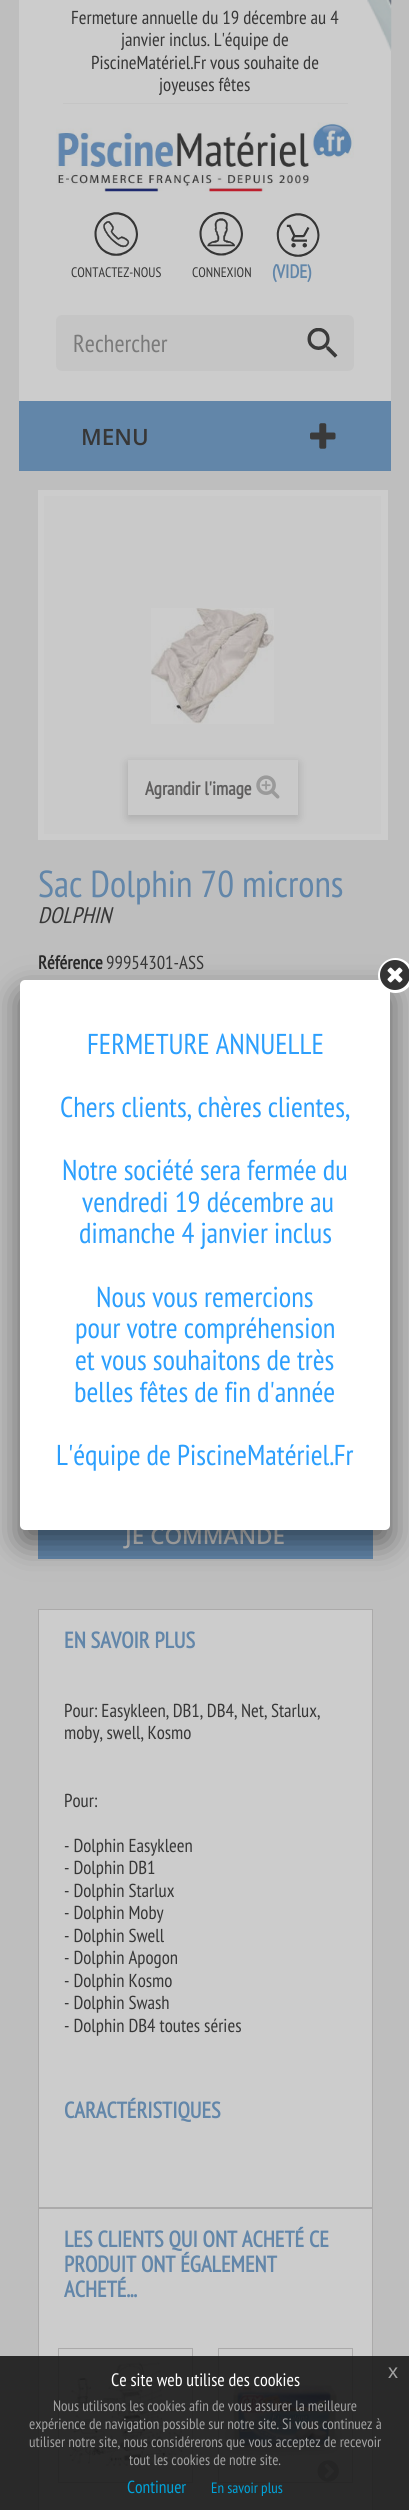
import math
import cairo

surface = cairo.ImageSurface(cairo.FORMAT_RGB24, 409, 2510)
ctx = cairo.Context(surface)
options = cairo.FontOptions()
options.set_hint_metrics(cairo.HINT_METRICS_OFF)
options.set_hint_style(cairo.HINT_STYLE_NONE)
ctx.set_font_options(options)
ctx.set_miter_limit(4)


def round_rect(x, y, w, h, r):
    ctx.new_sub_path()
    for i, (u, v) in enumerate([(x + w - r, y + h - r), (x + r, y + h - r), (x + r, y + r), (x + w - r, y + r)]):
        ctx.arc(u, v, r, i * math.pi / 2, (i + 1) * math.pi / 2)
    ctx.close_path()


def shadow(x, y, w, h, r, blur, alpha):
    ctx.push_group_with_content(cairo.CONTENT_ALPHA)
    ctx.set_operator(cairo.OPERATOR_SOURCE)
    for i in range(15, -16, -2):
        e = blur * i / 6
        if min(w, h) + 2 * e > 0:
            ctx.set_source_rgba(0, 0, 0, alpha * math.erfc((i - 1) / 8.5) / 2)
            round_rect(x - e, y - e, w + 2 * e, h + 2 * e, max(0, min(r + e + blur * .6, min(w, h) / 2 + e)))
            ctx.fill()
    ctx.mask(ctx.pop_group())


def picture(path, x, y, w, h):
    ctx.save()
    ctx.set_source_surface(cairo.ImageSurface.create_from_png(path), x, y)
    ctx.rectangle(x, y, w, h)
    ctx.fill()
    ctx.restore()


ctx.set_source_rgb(0.745, 0.745, 0.745)
ctx.paint()
ctx.set_source_rgb(0.8, 0.8, 0.8)
ctx.rectangle(19, 0, 372, 401)
ctx.fill()
picture("img1.png", 367, 0, 25, 51)
ctx.set_source_rgb(0.773, 0.773, 0.773)
ctx.rectangle(63, 103, 285, 1)
ctx.fill()
ctx.select_font_face("PT Sans Narrow")
ctx.set_font_size(18.75)
ctx.set_source_rgb(0.216, 0.216, 0.216)
ctx.move_to(71, 24)
ctx.show_text("Fermeture annuelle du 19 décembre au 4")
ctx.move_to(121, 46)
ctx.show_text("janvier inclus. L'équipe de")
ctx.move_to(91, 69)
ctx.show_text("PiscineMatériel.Fr vous souhaite de")
ctx.move_to(159, 91)
ctx.show_text("joyeuses fêtes")
picture("img2.png", 56, 122, 298, 70)
picture("img3.png", 94, 212, 44, 44)
ctx.set_font_size(13.75)
ctx.move_to(71, 277)
ctx.show_text("CONTACTEZ-NOUS")
picture("img4.png", 199, 212, 44, 44)
ctx.move_to(192, 277)
ctx.show_text("CONNEXION")
picture("img5.png", 276, 213, 44, 44)
ctx.select_font_face("PT Sans Narrow", cairo.FONT_SLANT_NORMAL, cairo.FONT_WEIGHT_BOLD)
ctx.set_font_size(18.75)
ctx.set_source_rgb(0.384, 0.525, 0.663)
ctx.move_to(272, 278)
ctx.show_text("(VIDE)")
ctx.set_source_rgb(0.773, 0.773, 0.773)
round_rect(56, 315, 298, 56, 6)
ctx.fill()
ctx.select_font_face("PT Sans Narrow")
ctx.set_font_size(24.5)
ctx.set_source_rgb(0.478, 0.478, 0.478)
ctx.move_to(73, 352)
ctx.show_text("Rechercher")
picture("img6.png", 307, 328, 31, 30)
ctx.set_source_rgb(0.384, 0.525, 0.663)
ctx.rectangle(19, 401, 372, 70)
ctx.fill()
ctx.select_font_face("Open Sans SemiBold")
ctx.set_font_size(22.5)
ctx.set_source_rgb(0.216, 0.216, 0.216)
ctx.move_to(81, 445)
ctx.show_text("MENU")
picture("img7.png", 310, 423, 26, 26)
ctx.set_source_rgb(0.8, 0.8, 0.8)
ctx.rectangle(38, 490, 350, 350)
ctx.fill()
ctx.set_source_rgb(0.788, 0.788, 0.788)
ctx.rectangle(44, 496, 337, 338)
ctx.fill()
picture("img8.png", 151, 608, 123, 116)
ctx.save()
ctx.set_fill_rule(cairo.FILL_RULE_EVEN_ODD)
ctx.new_path()
ctx.move_to(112, 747)
ctx.line_to(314, 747)
ctx.line_to(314, 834)
ctx.line_to(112, 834)
ctx.close_path()
ctx.move_to(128, 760)
ctx.line_to(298, 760)
ctx.line_to(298, 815)
ctx.line_to(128, 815)
ctx.close_path()
ctx.clip()
ctx.set_source_rgb(0, 0, 0)
shadow(128, 763, 170, 55, 0, 5, 0.16)
ctx.restore()
ctx.set_source_rgba(0.8, 0.8, 0.8, 0.5)
ctx.rectangle(297, 760, 1, 55)
ctx.fill()
ctx.select_font_face("PT Sans Narrow", cairo.FONT_SLANT_NORMAL, cairo.FONT_WEIGHT_BOLD)
ctx.set_font_size(18.75)
ctx.set_source_rgb(0.373, 0.369, 0.369)
ctx.move_to(145, 795)
ctx.show_text("Agrandir l'image")
picture("img9.png", 256, 775, 24, 24)
ctx.select_font_face("PT Sans Narrow")
ctx.set_font_size(37.5)
ctx.set_source_rgb(0.384, 0.525, 0.663)
ctx.move_to(38, 897)
ctx.show_text("Sac Dolphin 70 microns")
ctx.select_font_face("PT Sans Narrow", cairo.FONT_SLANT_ITALIC)
ctx.set_font_size(22.5)
ctx.set_source_rgb(0.216, 0.216, 0.216)
ctx.move_to(38, 923)
ctx.show_text("DOLPHIN")
ctx.select_font_face("PT Sans Narrow", cairo.FONT_SLANT_NORMAL, cairo.FONT_WEIGHT_BOLD)
ctx.set_font_size(18.75)
ctx.set_source_rgb(0.161, 0.161, 0.161)
ctx.move_to(38, 969)
ctx.show_text("Référence")
ctx.select_font_face("PT Sans Narrow")
ctx.set_source_rgb(0.216, 0.216, 0.216)
ctx.move_to(106, 969)
ctx.show_text("99954301-ASS")
ctx.set_source_rgb(0.384, 0.525, 0.663)
ctx.rectangle(38, 1530, 335, 29)
ctx.fill()
ctx.select_font_face("Open Sans SemiBold")
ctx.set_font_size(22.5)
ctx.set_source_rgb(0.8, 0.8, 0.8)
ctx.move_to(125, 1544)
ctx.show_text("JE COMMANDE")
ctx.rectangle(38.5, 1609.5, 334, 598)
ctx.fill_preserve()
ctx.set_source_rgb(0.671, 0.667, 0.667)
ctx.set_line_width(1)
ctx.stroke()
ctx.select_font_face("PT Sans Narrow", cairo.FONT_SLANT_NORMAL, cairo.FONT_WEIGHT_BOLD)
ctx.set_source_rgb(0.384, 0.525, 0.663)
ctx.move_to(64, 1648)
ctx.show_text("EN SAVOIR PLUS")
ctx.select_font_face("PT Sans Narrow")
ctx.set_font_size(18.75)
ctx.set_source_rgb(0.216, 0.216, 0.216)
ctx.move_to(64, 1717)
ctx.show_text("Pour: Easykleen, DB1, DB4, Net, Starlux,")
ctx.move_to(64, 1739)
ctx.show_text("moby, swell, Kosmo")
ctx.move_to(64, 1807)
ctx.show_text("Pour:")
ctx.move_to(64, 1852)
ctx.show_text("- Dolphin Easykleen")
ctx.move_to(64, 1874)
ctx.show_text("- Dolphin DB1")
ctx.move_to(64, 1897)
ctx.show_text("- Dolphin Starlux")
ctx.move_to(64, 1919)
ctx.show_text("- Dolphin Moby")
ctx.move_to(64, 1942)
ctx.show_text("- Dolphin Swell")
ctx.move_to(64, 1964)
ctx.show_text("- Dolphin Apogon")
ctx.move_to(64, 1987)
ctx.show_text("- Dolphin Kosmo")
ctx.move_to(64, 2009)
ctx.show_text("- Dolphin Swash")
ctx.move_to(64, 2032)
ctx.show_text("- Dolphin DB4 toutes séries")
ctx.select_font_face("PT Sans Narrow", cairo.FONT_SLANT_NORMAL, cairo.FONT_WEIGHT_BOLD)
ctx.set_font_size(22.5)
ctx.set_source_rgb(0.384, 0.525, 0.663)
ctx.move_to(64, 2118)
ctx.show_text("CARACTÉRISTIQUES")
ctx.set_source_rgb(0.8, 0.8, 0.8)
ctx.rectangle(38.5, 2208.5, 334, 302)
ctx.fill_preserve()
ctx.set_source_rgb(0.671, 0.667, 0.667)
ctx.stroke()
ctx.set_source_rgb(0.384, 0.525, 0.663)
ctx.move_to(64, 2247)
ctx.show_text("LES CLIENTS QUI ONT ACHETÉ CE")
ctx.move_to(64, 2272)
ctx.show_text("PRODUIT ONT ÉGALEMENT")
ctx.move_to(64, 2297)
ctx.show_text("ACHETÉ...")
ctx.rectangle(58.5, 2348.5, 134, 134)
ctx.set_source_rgb(0.671, 0.667, 0.667)
ctx.stroke()
picture("img10.png", 66, 2362, 118, 106)
ctx.rectangle(218.5, 2348.5, 134, 134)
ctx.stroke()
picture("img11.png", 225, 2384, 119, 74)
picture("img12.png", 317, 2460, 22, 22)
ctx.set_source_rgb(0, 0, 0)
shadow(20, 993, 370, 550, 5, 15.5, 0.5)
ctx.set_source_rgb(1, 1, 1)
round_rect(20, 980, 370, 550, 5)
ctx.fill()
ctx.arc(395.5, 975.5, 17.5, 0, 2 * math.pi)
ctx.fill()
picture("img13.png", 380, 960, 29, 30)
ctx.select_font_face("PT Sans Narrow")
ctx.set_font_size(28.75)
ctx.set_source_rgb(0.173, 0.624, 0.992)
ctx.move_to(87, 1054)
ctx.show_text("FERMETURE ANNUELLE")
ctx.move_to(60, 1117)
ctx.show_text("Chers clients, chères clientes,")
ctx.move_to(62, 1180)
ctx.show_text("Notre société sera fermée du")
ctx.move_to(82, 1212)
ctx.show_text("vendredi 19 décembre au")
ctx.move_to(79, 1243)
ctx.show_text("dimanche 4 janvier inclus")
ctx.move_to(96, 1307)
ctx.show_text("Nous vous remercions")
ctx.move_to(75, 1338)
ctx.show_text("pour votre compréhension")
ctx.move_to(75, 1370)
ctx.show_text("et vous souhaitons de très")
ctx.move_to(74, 1402)
ctx.show_text("belles fêtes de fin d'année")
ctx.move_to(56, 1465)
ctx.show_text("L'équipe de PiscineMatériel.Fr")
ctx.set_source_rgba(0.098, 0.098, 0.098, 0.9)
ctx.rectangle(0, 2356, 409, 154)
ctx.fill()
ctx.set_font_size(18)
ctx.set_source_rgb(1, 1, 1)
ctx.move_to(111, 2386)
ctx.show_text("Ce site web utilise des cookies")
ctx.select_font_face("Liberation Sans")
ctx.set_font_size(20)
ctx.set_source_rgb(0.635, 0.635, 0.635)
ctx.move_to(388, 2378)
ctx.show_text("x")
ctx.select_font_face("PT Sans Narrow")
ctx.set_font_size(15)
ctx.move_to(53, 2411)
ctx.show_text("Nous utilisons les cookies afin de vous assurer la meilleure")
ctx.move_to(29, 2429)
ctx.show_text("expérience de navigation possible sur notre site. Si vous continuez à")
ctx.move_to(29, 2447)
ctx.show_text("utiliser notre site, nous considérerons que vous acceptez de recevoir")
ctx.move_to(129, 2465)
ctx.show_text("tout les cookies de notre site.")
ctx.set_font_size(17.5)
ctx.set_source_rgb(0, 0.639, 0.855)
ctx.move_to(127, 2493)
ctx.show_text("Continuer")
ctx.set_font_size(15)
ctx.move_to(211, 2493)
ctx.show_text("En savoir plus")
surface.write_to_png("page.png")
